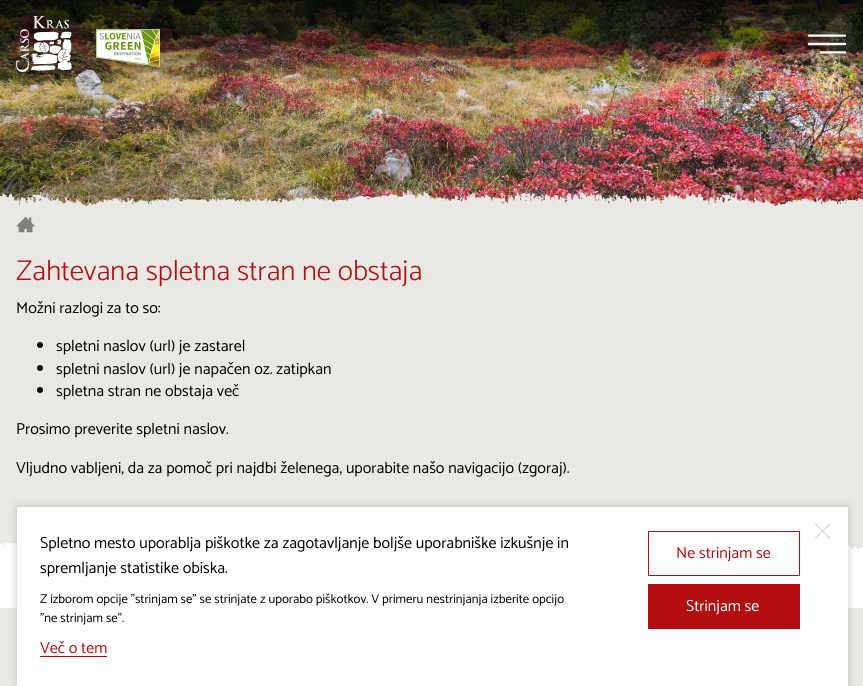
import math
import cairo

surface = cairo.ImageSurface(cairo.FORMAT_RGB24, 863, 686)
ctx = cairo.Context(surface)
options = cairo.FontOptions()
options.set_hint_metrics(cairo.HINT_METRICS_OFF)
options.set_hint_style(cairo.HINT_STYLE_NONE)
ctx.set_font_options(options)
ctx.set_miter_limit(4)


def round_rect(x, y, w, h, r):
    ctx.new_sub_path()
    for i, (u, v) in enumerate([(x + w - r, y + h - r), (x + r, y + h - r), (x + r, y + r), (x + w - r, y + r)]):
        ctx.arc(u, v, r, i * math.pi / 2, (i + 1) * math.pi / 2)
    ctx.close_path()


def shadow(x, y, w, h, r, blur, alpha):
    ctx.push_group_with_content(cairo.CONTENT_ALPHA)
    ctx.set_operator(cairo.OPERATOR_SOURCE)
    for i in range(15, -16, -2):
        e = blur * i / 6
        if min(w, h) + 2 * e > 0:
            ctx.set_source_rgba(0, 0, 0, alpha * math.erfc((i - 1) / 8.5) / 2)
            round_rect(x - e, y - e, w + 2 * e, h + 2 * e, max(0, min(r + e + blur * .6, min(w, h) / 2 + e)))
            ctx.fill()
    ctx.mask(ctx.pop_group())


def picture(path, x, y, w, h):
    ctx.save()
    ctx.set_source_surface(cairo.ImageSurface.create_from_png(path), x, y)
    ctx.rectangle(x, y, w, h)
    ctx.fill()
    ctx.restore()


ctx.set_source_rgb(1, 1, 1)
ctx.paint()
picture("img1.png", 0, 0, 863, 206)
picture("img2.png", 0, 190, 863, 16)
picture("img3.png", 16, 16, 56, 56)
picture("img4.png", 96, 29, 64, 38)
picture("img5.png", 807, 34, 40, 20)
ctx.set_source_rgb(0.914, 0.91, 0.898)
ctx.rectangle(0, 206, 863, 330)
ctx.fill()
picture("img6.png", 16, 216, 19, 17)
ctx.select_font_face("Catamaran Thin")
ctx.set_font_size(28.75)
ctx.set_source_rgb(0.698, 0.055, 0.063)
ctx.move_to(16, 280)
ctx.show_text("Zahtevana spletna stran ne obstaja")
ctx.select_font_face("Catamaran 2 Thin")
ctx.set_font_size(16)
ctx.set_source_rgb(0, 0, 0)
ctx.move_to(16, 313)
ctx.show_text("Možni razlogi za to so:")
ctx.new_path()
ctx.arc(40, 345, 3, 0, 2 * math.pi)
ctx.fill()
ctx.move_to(56, 351)
ctx.show_text("spletni naslov (url) je zastarel")
ctx.new_path()
ctx.arc(40, 368, 3, 0, 2 * math.pi)
ctx.fill()
ctx.move_to(56, 374)
ctx.show_text("spletni naslov (url) je napačen oz. zatipkan")
ctx.new_path()
ctx.arc(40, 390, 3, 0, 2 * math.pi)
ctx.fill()
ctx.move_to(56, 396)
ctx.show_text("spletna stran ne obstaja več")
ctx.move_to(16, 434)
ctx.show_text("Prosimo preverite spletni naslov.")
ctx.move_to(16, 473)
ctx.show_text("Vljudno vabljeni, da za pomoč pri najdbi želenega, uporabite našo navigacijo (zgoraj).")
picture("img7.png", 0, 536, 863, 14)
ctx.set_source_rgb(0.914, 0.91, 0.898)
ctx.rectangle(0, 608, 863, 78)
ctx.fill()
picture("img9.png", 15, 680, 2, 6)
ctx.set_source_rgb(0, 0, 0)
shadow(17, 507, 831, 179, 0, 4.5, 0.2)
ctx.set_source_rgb(1, 1, 1)
ctx.rectangle(17, 507, 831, 179)
ctx.fill()
picture("img8.png", 815, 523, 16, 16)
ctx.set_source_rgb(0, 0, 0)
ctx.move_to(40, 548)
ctx.show_text("Spletno mesto uporablja piškotke za zagotavljanje boljše uporabniške izkušnje in")
ctx.move_to(40, 573)
ctx.show_text("spremljanje statistike obiska.")
ctx.set_font_size(12.8)
ctx.move_to(40, 603)
ctx.show_text("Z izborom opcije \"strinjam se\" se strinjate z uporabo piškotkov. V primeru nestrinjanja izberite opcijo")
ctx.move_to(40, 622)
ctx.show_text("\"ne strinjam se\".")
ctx.set_font_size(16)
ctx.set_source_rgb(0.698, 0.055, 0.063)
ctx.move_to(40, 653)
ctx.show_text("Več o tem")
ctx.rectangle(40, 656, 67, 1)
ctx.fill()
ctx.rectangle(648.5, 531.5, 151, 44)
ctx.set_line_width(1)
ctx.stroke()
ctx.move_to(676, 558)
ctx.show_text("Ne strinjam se")
ctx.rectangle(648, 584, 152, 45)
ctx.fill()
ctx.set_source_rgb(1, 1, 1)
ctx.move_to(686, 611)
ctx.show_text("Strinjam se")
surface.write_to_png("page.png")
